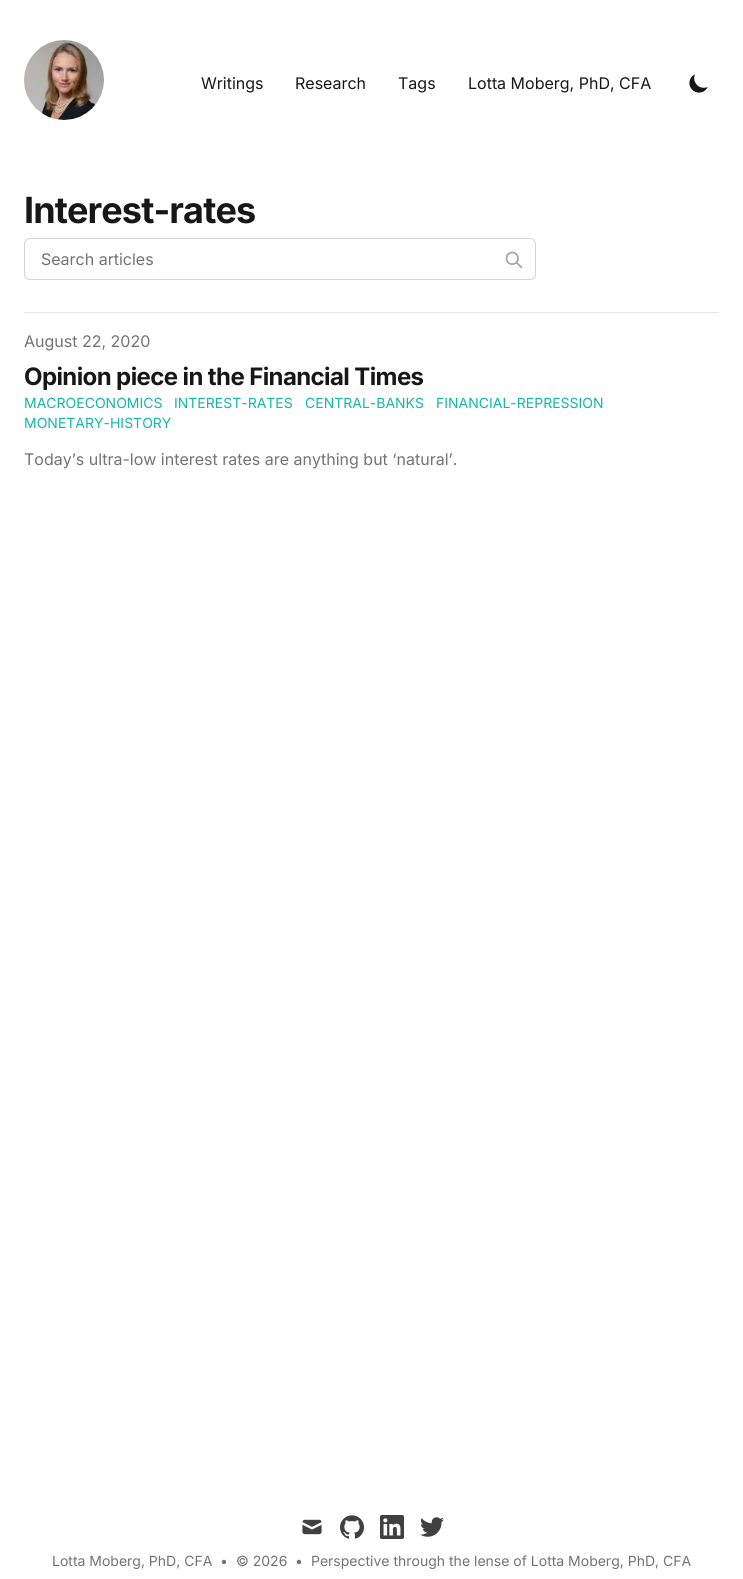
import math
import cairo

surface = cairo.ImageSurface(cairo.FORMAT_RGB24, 743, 1579)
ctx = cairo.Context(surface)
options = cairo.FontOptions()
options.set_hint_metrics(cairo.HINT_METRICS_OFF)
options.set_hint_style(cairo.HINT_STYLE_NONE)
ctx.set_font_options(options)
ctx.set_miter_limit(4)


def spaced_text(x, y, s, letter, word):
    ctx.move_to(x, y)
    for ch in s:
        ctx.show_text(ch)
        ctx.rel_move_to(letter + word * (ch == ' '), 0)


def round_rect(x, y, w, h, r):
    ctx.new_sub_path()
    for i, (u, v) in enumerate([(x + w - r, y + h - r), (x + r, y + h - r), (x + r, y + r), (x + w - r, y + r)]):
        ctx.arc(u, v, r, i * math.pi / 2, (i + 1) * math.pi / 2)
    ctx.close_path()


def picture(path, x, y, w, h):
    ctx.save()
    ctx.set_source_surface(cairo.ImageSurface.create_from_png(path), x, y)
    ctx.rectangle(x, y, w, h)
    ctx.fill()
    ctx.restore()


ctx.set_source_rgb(1, 1, 1)
ctx.paint()
picture("img1.png", 24, 40, 80, 80)
ctx.select_font_face("Inter")
ctx.set_font_size(16)
ctx.set_source_rgb(0.09, 0.09, 0.09)
ctx.move_to(201, 89)
ctx.show_text("Writings")
ctx.move_to(295, 89)
ctx.show_text("Research")
ctx.move_to(398, 89)
ctx.show_text("Tags")
ctx.move_to(468, 89)
ctx.show_text("Lotta Moberg, PhD, CFA")
picture("img2.png", 689, 74, 19, 19)
ctx.select_font_face("Inter", cairo.FONT_SLANT_NORMAL, cairo.FONT_WEIGHT_BOLD)
ctx.set_font_size(36)
spaced_text(24, 223, "Interest-rates", -0.9, 0)
round_rect(24.5, 238.5, 511, 41, 5.5)
ctx.set_source_rgb(0.831, 0.831, 0.831)
ctx.set_line_width(1)
ctx.stroke()
ctx.select_font_face("Inter")
ctx.set_font_size(16)
ctx.set_source_rgb(0.451, 0.451, 0.451)
ctx.move_to(41, 265)
ctx.show_text("Search articles")
ctx.new_path()
ctx.move_to(521.5, 267.5)
ctx.line_to(516.5, 262.5)
ctx.move_to(518, 258.5)
ctx.curve_to(518, 266, 506.5, 266, 506.5, 258.5)
ctx.curve_to(506.5, 250.5, 518, 250.5, 518, 258.5)
ctx.close_path()
ctx.set_source_rgb(0.639, 0.639, 0.639)
ctx.set_line_width(1.7)
ctx.set_line_cap(cairo.LINE_CAP_ROUND)
ctx.set_line_join(cairo.LINE_JOIN_ROUND)
ctx.stroke()
ctx.set_source_rgb(0.898, 0.898, 0.898)
ctx.rectangle(24, 312, 695, 1)
ctx.fill()
ctx.set_source_rgb(0.451, 0.451, 0.451)
ctx.move_to(24, 347)
ctx.show_text("August 22, 2020")
ctx.select_font_face("Inter", cairo.FONT_SLANT_NORMAL, cairo.FONT_WEIGHT_BOLD)
ctx.set_font_size(24)
ctx.set_source_rgb(0.09, 0.09, 0.09)
spaced_text(24, 385, "Opinion piece in the Financial Times", -0.6, 0)
ctx.select_font_face("Inter")
ctx.set_font_size(14)
ctx.set_source_rgb(0.078, 0.722, 0.651)
ctx.move_to(24, 408)
ctx.show_text("MACROECONOMICS")
ctx.move_to(174, 408)
ctx.show_text("INTEREST-RATES")
ctx.move_to(305, 408)
ctx.show_text("CENTRAL-BANKS")
ctx.move_to(436, 408)
ctx.show_text("FINANCIAL-REPRESSION")
ctx.move_to(24, 428)
ctx.show_text("MONETARY-HISTORY")
ctx.set_font_size(16)
ctx.set_source_rgb(0.451, 0.451, 0.451)
ctx.move_to(24, 465)
ctx.show_text("Today’s ultra-low interest rates are anything but ‘natural’.")
picture("img3.png", 302, 1519, 20, 16)
picture("img4.png", 340, 1515, 24, 24)
picture("img5.png", 380, 1515, 24, 24)
picture("img6.png", 420, 1517, 24, 20)
ctx.set_font_size(14)
ctx.move_to(52, 1566)
ctx.show_text("Lotta Moberg, PhD, CFA")
ctx.move_to(220, 1566)
ctx.show_text("•")
ctx.move_to(236, 1566)
ctx.show_text("© 2026")
ctx.move_to(295, 1566)
ctx.show_text("•")
ctx.move_to(311, 1566)
ctx.show_text("Perspective through the lense of Lotta Moberg, PhD, CFA")
surface.write_to_png("page.png")
